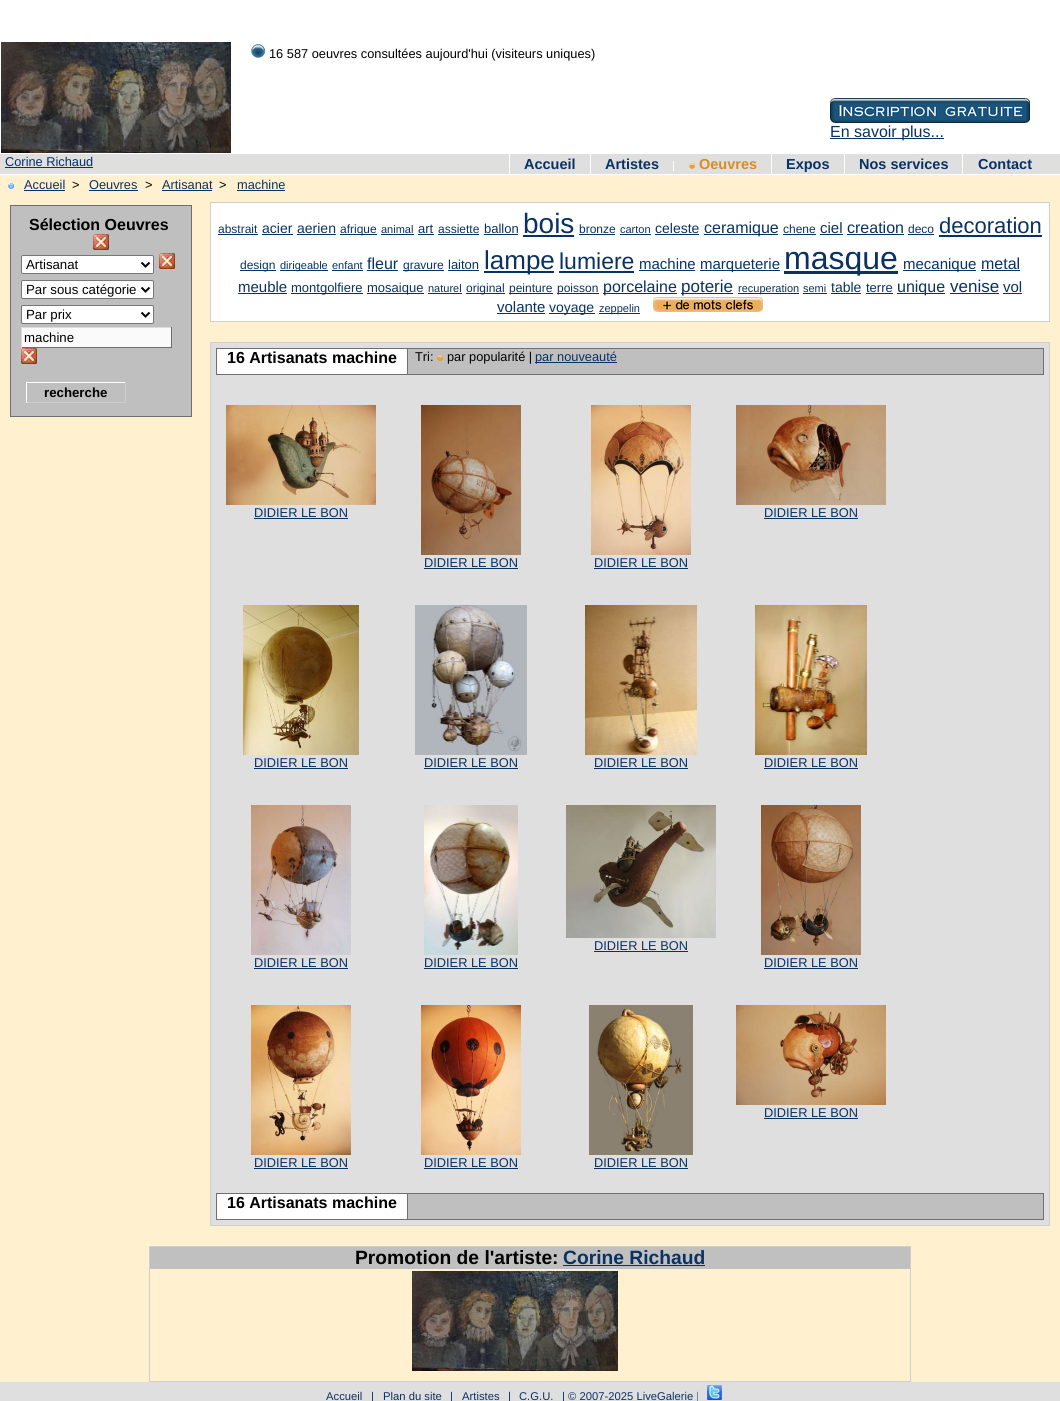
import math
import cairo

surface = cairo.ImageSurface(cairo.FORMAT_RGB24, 1060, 1401)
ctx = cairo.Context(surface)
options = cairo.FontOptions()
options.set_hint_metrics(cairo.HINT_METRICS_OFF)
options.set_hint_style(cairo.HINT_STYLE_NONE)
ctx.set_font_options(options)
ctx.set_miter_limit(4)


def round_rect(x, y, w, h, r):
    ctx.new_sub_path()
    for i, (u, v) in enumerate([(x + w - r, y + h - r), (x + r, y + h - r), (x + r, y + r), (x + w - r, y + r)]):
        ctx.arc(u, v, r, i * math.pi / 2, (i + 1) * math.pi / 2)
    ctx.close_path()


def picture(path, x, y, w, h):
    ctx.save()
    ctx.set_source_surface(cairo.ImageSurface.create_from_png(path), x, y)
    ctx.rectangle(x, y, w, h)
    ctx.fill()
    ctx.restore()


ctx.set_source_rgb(1, 1, 1)
ctx.paint()
picture("img1.png", 0, 174, 1060, 1)
picture("img2.png", 251, 44, 14, 14)
ctx.select_font_face("Liberation Sans")
ctx.set_font_size(12.8)
ctx.set_source_rgb(0, 0, 0)
ctx.move_to(269, 58)
ctx.show_text("16 587 oeuvres consultées aujourd'hui (visiteurs uniques)")
picture("img3.png", 830, 98, 200, 25)
ctx.set_source_rgb(0.039, 0.196, 0.388)
ctx.rectangle(830, 138, 114, 1)
ctx.fill()
ctx.set_font_size(16)
ctx.move_to(830, 137)
ctx.show_text("En savoir plus...")
picture("img4.png", 1, 42, 230, 111)
ctx.set_source_rgb(0.875, 0.875, 0.875)
ctx.rectangle(0, 154, 1060, 20)
ctx.fill()
ctx.set_font_size(12.8)
ctx.set_source_rgb(0.039, 0.196, 0.388)
ctx.move_to(5, 166)
ctx.show_text("Corine Richaud")
ctx.rectangle(5, 167, 88, 1)
ctx.fill()
ctx.select_font_face("Liberation Sans", cairo.FONT_SLANT_NORMAL, cairo.FONT_WEIGHT_BOLD)
ctx.set_font_size(14.5)
ctx.move_to(524, 169)
ctx.show_text("Accueil")
ctx.set_source_rgb(1, 1, 1)
ctx.rectangle(509, 154, 1, 20)
ctx.fill()
ctx.set_source_rgb(0.039, 0.196, 0.388)
ctx.move_to(605, 169)
ctx.show_text("Artistes")
ctx.set_source_rgb(1, 1, 1)
ctx.rectangle(590, 154, 1, 20)
ctx.fill()
picture("img5.png", 689, 163, 6, 6)
ctx.set_source_rgb(0.867, 0.545, 0.122)
ctx.move_to(699, 169)
ctx.show_text("Oeuvres")
ctx.set_source_rgb(1, 1, 1)
ctx.rectangle(673, 161, 1, 10)
ctx.fill()
ctx.set_source_rgb(0.039, 0.196, 0.388)
ctx.move_to(786, 169)
ctx.show_text("Expos")
ctx.set_source_rgb(1, 1, 1)
ctx.rectangle(771, 154, 1, 20)
ctx.fill()
ctx.set_source_rgb(0.039, 0.196, 0.388)
ctx.move_to(859, 169)
ctx.show_text("Nos services")
ctx.set_source_rgb(1, 1, 1)
ctx.rectangle(844, 154, 1, 20)
ctx.fill()
ctx.set_source_rgb(0.039, 0.196, 0.388)
ctx.move_to(978, 169)
ctx.show_text("Contact")
ctx.set_source_rgb(1, 1, 1)
ctx.rectangle(962, 154, 1, 20)
ctx.fill()
ctx.set_source_rgb(1, 0.941, 0.812)
ctx.rectangle(0, 175, 1060, 1207)
ctx.fill()
picture("img6.png", 8, 183, 6, 6)
ctx.select_font_face("Liberation Sans")
ctx.set_font_size(12.8)
ctx.set_source_rgb(0.039, 0.196, 0.388)
ctx.move_to(24, 189)
ctx.show_text("Accueil")
ctx.rectangle(24, 190, 41, 1)
ctx.fill()
ctx.set_source_rgb(0, 0, 0)
ctx.move_to(72, 189)
ctx.show_text(">")
ctx.set_source_rgb(0.039, 0.196, 0.388)
ctx.move_to(89, 189)
ctx.show_text("Oeuvres")
ctx.rectangle(89, 190, 49, 1)
ctx.fill()
ctx.set_source_rgb(0, 0, 0)
ctx.move_to(145, 189)
ctx.show_text(">")
ctx.set_source_rgb(0.039, 0.196, 0.388)
ctx.move_to(162, 189)
ctx.show_text("Artisanat")
ctx.rectangle(162, 190, 50, 1)
ctx.fill()
ctx.set_source_rgb(0, 0, 0)
ctx.move_to(219, 189)
ctx.show_text(">")
ctx.set_source_rgb(0.039, 0.196, 0.388)
ctx.move_to(237, 189)
ctx.show_text("machine")
ctx.rectangle(237, 190, 48, 1)
ctx.fill()
ctx.set_source_rgb(0.749, 0.749, 0.749)
ctx.rectangle(10.5, 205.5, 181, 211)
ctx.fill_preserve()
ctx.set_source_rgb(0.435, 0.435, 0.435)
ctx.set_line_width(1)
ctx.stroke()
ctx.select_font_face("Liberation Sans", cairo.FONT_SLANT_NORMAL, cairo.FONT_WEIGHT_BOLD)
ctx.set_font_size(16)
ctx.set_source_rgb(0, 0, 0)
ctx.move_to(29, 230)
ctx.show_text("Sélection Oeuvres")
picture("img7.png", 93, 234, 16, 16)
ctx.set_source_rgb(1, 1, 1)
round_rect(21.5, 255.5, 132, 18, 1.5)
ctx.fill_preserve()
ctx.set_source_rgb(0.463, 0.463, 0.463)
ctx.stroke()
ctx.new_path()
ctx.move_to(141.5, 262.5)
ctx.line_to(145.5, 266.5)
ctx.line_to(149.5, 262.5)
ctx.set_source_rgb(0, 0, 0)
ctx.set_line_width(2)
ctx.stroke()
ctx.select_font_face("Liberation Sans")
ctx.set_font_size(13.25)
ctx.move_to(26, 269)
ctx.show_text("Artisanat")
picture("img7.png", 159, 253, 16, 16)
ctx.set_source_rgb(1, 1, 1)
round_rect(21.5, 280.5, 132, 18, 1.5)
ctx.fill_preserve()
ctx.set_source_rgb(0.463, 0.463, 0.463)
ctx.set_line_width(1)
ctx.stroke()
ctx.new_path()
ctx.move_to(141.5, 287.5)
ctx.line_to(145.5, 291.5)
ctx.line_to(149.5, 287.5)
ctx.set_source_rgb(0, 0, 0)
ctx.set_line_width(2)
ctx.stroke()
ctx.move_to(26, 294)
ctx.show_text("Par sous catégorie")
ctx.set_source_rgb(1, 1, 1)
round_rect(21.5, 305.5, 132, 18, 1.5)
ctx.fill_preserve()
ctx.set_source_rgb(0.463, 0.463, 0.463)
ctx.set_line_width(1)
ctx.stroke()
ctx.new_path()
ctx.move_to(141.5, 312.5)
ctx.line_to(145.5, 316.5)
ctx.line_to(149.5, 312.5)
ctx.set_source_rgb(0, 0, 0)
ctx.set_line_width(2)
ctx.stroke()
ctx.move_to(26, 319)
ctx.show_text("Par prix")
ctx.set_source_rgb(0.98, 0.98, 0.98)
ctx.rectangle(22, 328, 149, 19)
ctx.fill()
ctx.set_source_rgb(0.863, 0.863, 0.863)
ctx.rectangle(21, 327, 151, 1)
ctx.fill()
ctx.set_source_rgb(0.435, 0.435, 0.435)
ctx.rectangle(171, 327, 1, 21)
ctx.fill()
ctx.rectangle(21, 347, 151, 1)
ctx.fill()
ctx.set_source_rgb(0.863, 0.863, 0.863)
ctx.rectangle(21, 327, 1, 21)
ctx.fill()
ctx.set_source_rgb(0, 0, 0)
ctx.move_to(24, 342)
ctx.show_text("machine")
picture("img7.png", 21, 348, 16, 16)
ctx.set_source_rgb(1, 1, 1)
ctx.rectangle(26, 382, 100, 1)
ctx.fill()
ctx.set_source_rgb(0.8, 0.8, 0.8)
ctx.rectangle(125, 382, 1, 21)
ctx.fill()
ctx.rectangle(26, 402, 100, 1)
ctx.fill()
ctx.set_source_rgb(1, 1, 1)
ctx.rectangle(26, 382, 1, 21)
ctx.fill()
ctx.select_font_face("Liberation Sans", cairo.FONT_SLANT_NORMAL, cairo.FONT_WEIGHT_BOLD)
ctx.set_source_rgb(0, 0, 0)
ctx.move_to(44, 397)
ctx.show_text("recherche")
ctx.set_source_rgb(1, 1, 1)
ctx.rectangle(210.5, 202.5, 839, 119)
ctx.fill_preserve()
ctx.set_source_rgb(0.812, 0.812, 0.812)
ctx.set_line_width(1)
ctx.stroke()
ctx.select_font_face("Liberation Sans")
ctx.set_font_size(12)
ctx.set_source_rgb(0.039, 0.196, 0.388)
ctx.move_to(218, 233)
ctx.show_text("abstrait")
ctx.rectangle(218, 234, 40, 1)
ctx.fill()
ctx.set_font_size(14)
ctx.move_to(262, 233)
ctx.show_text("acier")
ctx.rectangle(262, 234, 31, 1)
ctx.fill()
ctx.move_to(297, 233)
ctx.show_text("aerien")
ctx.rectangle(297, 234, 39, 1)
ctx.fill()
ctx.rectangle(340, 234, 37, 1)
ctx.fill()
ctx.set_font_size(12)
ctx.move_to(340, 233)
ctx.show_text("afrique")
ctx.set_font_size(11)
ctx.move_to(381, 233)
ctx.show_text("animal")
ctx.rectangle(381, 234, 33, 1)
ctx.fill()
ctx.set_font_size(13)
ctx.move_to(418, 233)
ctx.show_text("art")
ctx.rectangle(418, 234, 16, 1)
ctx.fill()
ctx.set_font_size(12)
ctx.move_to(438, 233)
ctx.show_text("assiette")
ctx.rectangle(438, 234, 41, 1)
ctx.fill()
ctx.set_font_size(13)
ctx.move_to(484, 233)
ctx.show_text("ballon")
ctx.rectangle(484, 234, 34, 1)
ctx.fill()
ctx.set_font_size(28)
ctx.move_to(523, 233)
ctx.show_text("bois")
ctx.rectangle(523, 235, 51, 2)
ctx.fill()
ctx.set_font_size(12)
ctx.move_to(579, 233)
ctx.show_text("bronze")
ctx.rectangle(579, 234, 36, 1)
ctx.fill()
ctx.set_font_size(11)
ctx.move_to(620, 233)
ctx.show_text("carton")
ctx.rectangle(620, 234, 31, 1)
ctx.fill()
ctx.set_font_size(14)
ctx.move_to(655, 233)
ctx.show_text("celeste")
ctx.rectangle(655, 234, 44, 1)
ctx.fill()
ctx.rectangle(704, 234, 74, 1)
ctx.fill()
ctx.set_font_size(16)
ctx.move_to(704, 233)
ctx.show_text("ceramique")
ctx.set_font_size(12)
ctx.move_to(783, 233)
ctx.show_text("chene")
ctx.rectangle(783, 234, 33, 1)
ctx.fill()
ctx.set_font_size(15)
ctx.move_to(820, 233)
ctx.show_text("ciel")
ctx.rectangle(820, 234, 23, 1)
ctx.fill()
ctx.set_font_size(16)
ctx.move_to(847, 233)
ctx.show_text("creation")
ctx.rectangle(847, 234, 57, 1)
ctx.fill()
ctx.set_font_size(12)
ctx.move_to(908, 233)
ctx.show_text("deco")
ctx.rectangle(908, 234, 26, 1)
ctx.fill()
ctx.set_font_size(22)
ctx.move_to(939, 233)
ctx.show_text("decoration")
ctx.rectangle(939, 235, 103, 2)
ctx.fill()
ctx.rectangle(240, 270, 36, 1)
ctx.fill()
ctx.set_font_size(12)
ctx.move_to(240, 269)
ctx.show_text("design")
ctx.rectangle(280, 270, 48, 1)
ctx.fill()
ctx.set_font_size(11)
ctx.move_to(280, 269)
ctx.show_text("dirigeable")
ctx.move_to(332, 269)
ctx.show_text("enfant")
ctx.rectangle(332, 270, 31, 1)
ctx.fill()
ctx.set_font_size(16)
ctx.move_to(367, 269)
ctx.show_text("fleur")
ctx.rectangle(367, 270, 31, 1)
ctx.fill()
ctx.rectangle(403, 270, 41, 1)
ctx.fill()
ctx.set_font_size(12)
ctx.move_to(403, 269)
ctx.show_text("gravure")
ctx.set_font_size(13)
ctx.move_to(448, 269)
ctx.show_text("laiton")
ctx.rectangle(448, 270, 31, 1)
ctx.fill()
ctx.rectangle(484, 271, 70, 2)
ctx.fill()
ctx.set_font_size(26)
ctx.move_to(484, 269)
ctx.show_text("lampe")
ctx.set_font_size(23)
ctx.move_to(559, 269)
ctx.show_text("lumiere")
ctx.rectangle(559, 271, 75, 2)
ctx.fill()
ctx.set_font_size(15)
ctx.move_to(639, 269)
ctx.show_text("machine")
ctx.rectangle(639, 270, 56, 1)
ctx.fill()
ctx.rectangle(700, 270, 80, 1)
ctx.fill()
ctx.move_to(700, 269)
ctx.show_text("marqueterie")
ctx.rectangle(784, 271, 114, 3)
ctx.fill()
ctx.set_font_size(32)
ctx.move_to(784, 269)
ctx.show_text("masque")
ctx.rectangle(903, 270, 73, 1)
ctx.fill()
ctx.set_font_size(15)
ctx.move_to(903, 269)
ctx.show_text("mecanique")
ctx.set_font_size(16)
ctx.move_to(981, 269)
ctx.show_text("metal")
ctx.rectangle(981, 270, 39, 1)
ctx.fill()
ctx.set_font_size(15)
ctx.move_to(238, 292)
ctx.show_text("meuble")
ctx.rectangle(238, 293, 49, 1)
ctx.fill()
ctx.rectangle(291, 293, 72, 1)
ctx.fill()
ctx.set_font_size(13)
ctx.move_to(291, 292)
ctx.show_text("montgolfiere")
ctx.rectangle(367, 293, 57, 1)
ctx.fill()
ctx.move_to(367, 292)
ctx.show_text("mosaique")
ctx.set_font_size(11)
ctx.move_to(428, 292)
ctx.show_text("naturel")
ctx.rectangle(428, 293, 34, 1)
ctx.fill()
ctx.rectangle(466, 293, 39, 1)
ctx.fill()
ctx.set_font_size(12)
ctx.move_to(466, 292)
ctx.show_text("original")
ctx.rectangle(509, 293, 44, 1)
ctx.fill()
ctx.move_to(509, 292)
ctx.show_text("peinture")
ctx.rectangle(557, 293, 42, 1)
ctx.fill()
ctx.move_to(557, 292)
ctx.show_text("poisson")
ctx.rectangle(603, 293, 74, 1)
ctx.fill()
ctx.set_font_size(16)
ctx.move_to(603, 292)
ctx.show_text("porcelaine")
ctx.rectangle(681, 293, 52, 1)
ctx.fill()
ctx.set_font_size(17)
ctx.move_to(681, 292)
ctx.show_text("poterie")
ctx.rectangle(738, 293, 61, 1)
ctx.fill()
ctx.set_font_size(11)
ctx.move_to(738, 292)
ctx.show_text("recuperation")
ctx.move_to(803, 292)
ctx.show_text("semi")
ctx.rectangle(803, 293, 24, 1)
ctx.fill()
ctx.set_font_size(14)
ctx.move_to(831, 292)
ctx.show_text("table")
ctx.rectangle(831, 293, 30, 1)
ctx.fill()
ctx.set_font_size(13)
ctx.move_to(866, 292)
ctx.show_text("terre")
ctx.rectangle(866, 293, 27, 1)
ctx.fill()
ctx.rectangle(897, 293, 48, 1)
ctx.fill()
ctx.set_font_size(16)
ctx.move_to(897, 292)
ctx.show_text("unique")
ctx.set_font_size(17)
ctx.move_to(950, 292)
ctx.show_text("venise")
ctx.rectangle(950, 293, 49, 1)
ctx.fill()
ctx.set_font_size(15)
ctx.move_to(1003, 292)
ctx.show_text("vol")
ctx.rectangle(1003, 293, 19, 1)
ctx.fill()
ctx.move_to(497, 312)
ctx.show_text("volante")
ctx.rectangle(497, 313, 48, 1)
ctx.fill()
ctx.rectangle(549, 313, 46, 1)
ctx.fill()
ctx.set_font_size(14)
ctx.move_to(549, 312)
ctx.show_text("voyage")
ctx.rectangle(599, 313, 41, 1)
ctx.fill()
ctx.set_font_size(11)
ctx.move_to(599, 312)
ctx.show_text("zeppelin")
picture("img8.png", 653, 297, 110, 15)
ctx.set_source_rgb(0.875, 0.875, 0.875)
ctx.rectangle(210.5, 342.5, 839, 883)
ctx.fill_preserve()
ctx.set_source_rgb(0.812, 0.812, 0.812)
ctx.stroke()
ctx.set_source_rgb(0.749, 0.749, 0.749)
ctx.rectangle(408, 349, 635, 25)
ctx.fill()
ctx.rectangle(216.5, 348.5, 827, 26)
ctx.set_source_rgb(0.435, 0.435, 0.435)
ctx.stroke()
ctx.set_source_rgb(1, 1, 1)
ctx.rectangle(217, 349, 190, 25)
ctx.fill()
ctx.set_source_rgb(0.435, 0.435, 0.435)
ctx.rectangle(407, 349, 1, 25)
ctx.fill()
ctx.select_font_face("Liberation Sans", cairo.FONT_SLANT_NORMAL, cairo.FONT_WEIGHT_BOLD)
ctx.set_font_size(16)
ctx.set_source_rgb(0, 0, 0)
ctx.move_to(227, 363)
ctx.show_text("16 Artisanats machine")
ctx.select_font_face("Liberation Sans")
ctx.set_font_size(12.8)
ctx.move_to(415, 361)
ctx.show_text("Tri:")
picture("img9.png", 437, 355, 6, 6)
ctx.move_to(447, 361)
ctx.show_text("par popularité |")
ctx.set_source_rgb(0.039, 0.196, 0.388)
ctx.rectangle(535, 362, 82, 1)
ctx.fill()
ctx.move_to(535, 361)
ctx.show_text("par nouveauté")
picture("img10.png", 226, 405, 150, 100)
ctx.move_to(254, 517)
ctx.show_text("DIDIER LE BON")
ctx.rectangle(254, 518, 94, 1)
ctx.fill()
picture("img11.png", 736, 405, 150, 100)
ctx.move_to(764, 517)
ctx.show_text("DIDIER LE BON")
ctx.rectangle(764, 518, 94, 1)
ctx.fill()
picture("img12.png", 421, 405, 100, 150)
ctx.move_to(424, 567)
ctx.show_text("DIDIER LE BON")
ctx.rectangle(424, 568, 94, 1)
ctx.fill()
picture("img13.png", 591, 405, 100, 150)
ctx.move_to(594, 567)
ctx.show_text("DIDIER LE BON")
ctx.rectangle(594, 568, 94, 1)
ctx.fill()
picture("img14.png", 243, 605, 116, 150)
ctx.move_to(254, 767)
ctx.show_text("DIDIER LE BON")
ctx.rectangle(254, 768, 94, 1)
ctx.fill()
picture("img15.png", 415, 605, 112, 150)
ctx.move_to(424, 767)
ctx.show_text("DIDIER LE BON")
ctx.rectangle(424, 768, 94, 1)
ctx.fill()
picture("img16.png", 585, 605, 112, 150)
ctx.move_to(594, 767)
ctx.show_text("DIDIER LE BON")
ctx.rectangle(594, 768, 94, 1)
ctx.fill()
picture("img17.png", 755, 605, 112, 150)
ctx.move_to(764, 767)
ctx.show_text("DIDIER LE BON")
ctx.rectangle(764, 768, 94, 1)
ctx.fill()
picture("img18.png", 566, 805, 150, 133)
ctx.move_to(594, 950)
ctx.show_text("DIDIER LE BON")
ctx.rectangle(594, 951, 94, 1)
ctx.fill()
picture("img19.png", 251, 805, 100, 150)
ctx.move_to(254, 967)
ctx.show_text("DIDIER LE BON")
ctx.rectangle(254, 968, 94, 1)
ctx.fill()
picture("img20.png", 424, 805, 94, 150)
ctx.move_to(424, 967)
ctx.show_text("DIDIER LE BON")
ctx.rectangle(424, 968, 94, 1)
ctx.fill()
picture("img21.png", 761, 805, 100, 150)
ctx.move_to(764, 967)
ctx.show_text("DIDIER LE BON")
ctx.rectangle(764, 968, 94, 1)
ctx.fill()
picture("img22.png", 736, 1005, 150, 100)
ctx.move_to(764, 1117)
ctx.show_text("DIDIER LE BON")
ctx.rectangle(764, 1118, 94, 1)
ctx.fill()
picture("img23.png", 251, 1005, 100, 150)
ctx.move_to(254, 1167)
ctx.show_text("DIDIER LE BON")
ctx.rectangle(254, 1168, 94, 1)
ctx.fill()
picture("img24.png", 421, 1005, 100, 150)
ctx.move_to(424, 1167)
ctx.show_text("DIDIER LE BON")
ctx.rectangle(424, 1168, 94, 1)
ctx.fill()
picture("img25.png", 589, 1005, 104, 150)
ctx.move_to(594, 1167)
ctx.show_text("DIDIER LE BON")
ctx.rectangle(594, 1168, 94, 1)
ctx.fill()
ctx.set_source_rgb(0.749, 0.749, 0.749)
ctx.rectangle(408, 1194, 635, 25)
ctx.fill()
ctx.rectangle(216.5, 1193.5, 827, 26)
ctx.set_source_rgb(0.435, 0.435, 0.435)
ctx.stroke()
ctx.set_source_rgb(1, 1, 1)
ctx.rectangle(217, 1194, 190, 25)
ctx.fill()
ctx.set_source_rgb(0.435, 0.435, 0.435)
ctx.rectangle(407, 1194, 1, 25)
ctx.fill()
ctx.select_font_face("Liberation Sans", cairo.FONT_SLANT_NORMAL, cairo.FONT_WEIGHT_BOLD)
ctx.set_font_size(16)
ctx.set_source_rgb(0, 0, 0)
ctx.move_to(227, 1208)
ctx.show_text("16 Artisanats machine")
ctx.rectangle(149.5, 1246.5, 761, 135)
ctx.set_source_rgb(0.812, 0.812, 0.812)
ctx.stroke()
ctx.set_source_rgb(0.753, 0.753, 0.753)
ctx.rectangle(150, 1247, 760, 22)
ctx.fill()
ctx.set_font_size(19.25)
ctx.set_source_rgb(0, 0, 0)
ctx.move_to(355, 1264)
ctx.show_text("Promotion de l'artiste:")
ctx.set_source_rgb(0.039, 0.196, 0.388)
ctx.move_to(563, 1264)
ctx.show_text("Corine Richaud")
ctx.rectangle(563, 1265, 142, 1)
ctx.fill()
picture("img26.png", 412, 1271, 206, 100)
ctx.set_source_rgb(0.875, 0.875, 0.875)
ctx.rectangle(0, 1382, 1060, 19)
ctx.fill()
ctx.select_font_face("Liberation Sans")
ctx.set_font_size(11.25)
ctx.set_source_rgb(0.039, 0.196, 0.388)
ctx.move_to(326, 1400)
ctx.show_text("Accueil")
ctx.move_to(371, 1400)
ctx.show_text("|")
ctx.move_to(383, 1400)
ctx.show_text("Plan du site")
ctx.move_to(450, 1400)
ctx.show_text("|")
ctx.move_to(462, 1400)
ctx.show_text("Artistes")
ctx.move_to(508, 1400)
ctx.show_text("|")
ctx.move_to(519, 1400)
ctx.show_text("C.G.U.")
ctx.move_to(562, 1400)
ctx.show_text("| © 2007-2025 LiveGalerie |")
picture("img27.png", 707, 1385, 15, 15)
surface.write_to_png("page.png")
